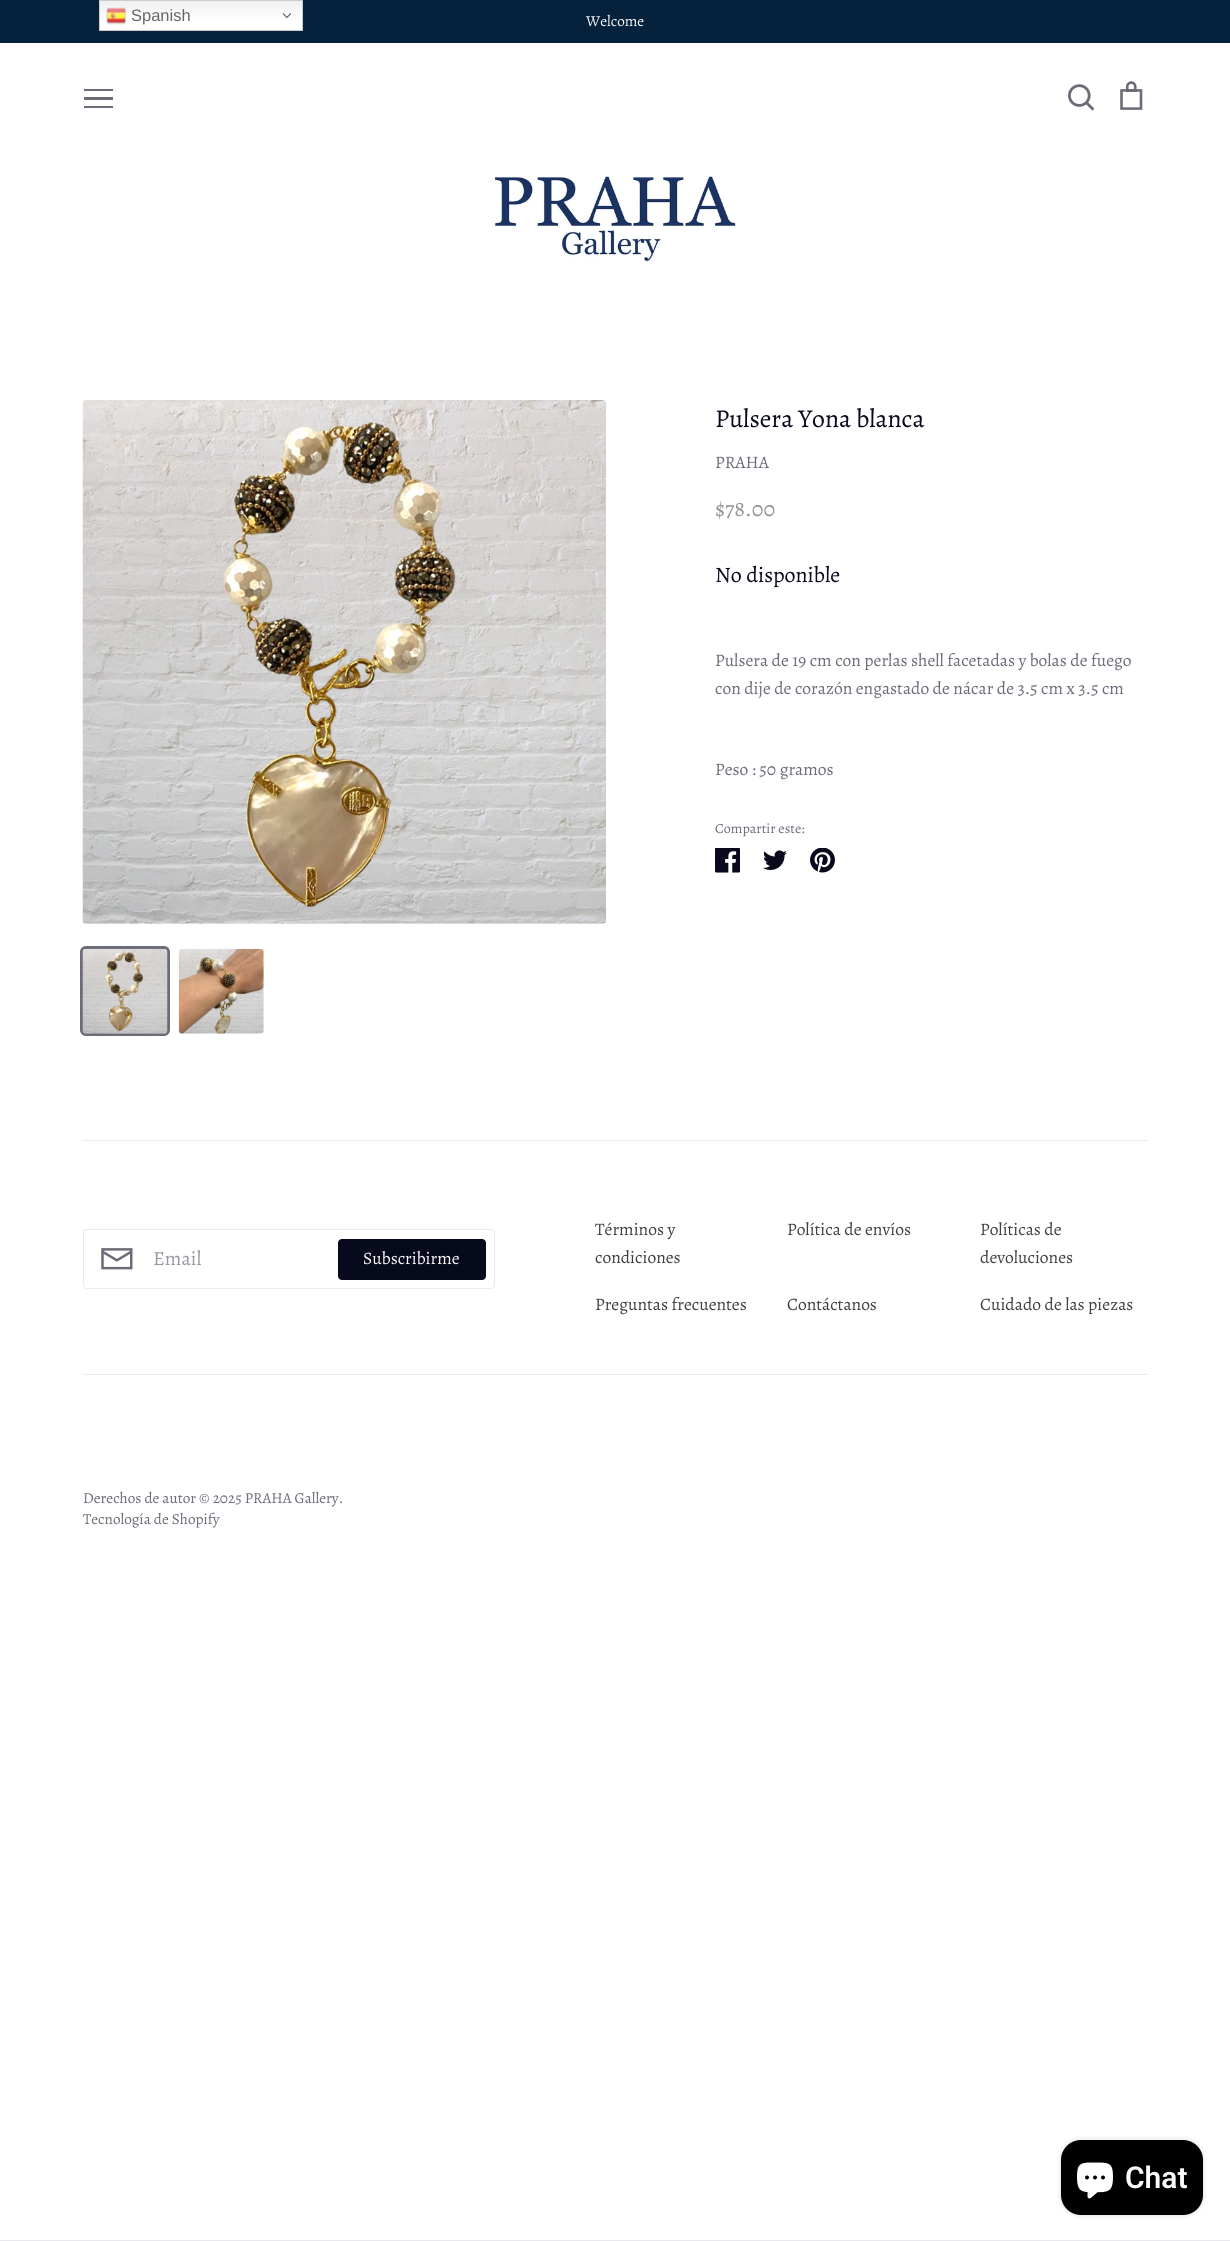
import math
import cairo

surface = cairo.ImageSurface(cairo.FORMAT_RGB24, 1230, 2241)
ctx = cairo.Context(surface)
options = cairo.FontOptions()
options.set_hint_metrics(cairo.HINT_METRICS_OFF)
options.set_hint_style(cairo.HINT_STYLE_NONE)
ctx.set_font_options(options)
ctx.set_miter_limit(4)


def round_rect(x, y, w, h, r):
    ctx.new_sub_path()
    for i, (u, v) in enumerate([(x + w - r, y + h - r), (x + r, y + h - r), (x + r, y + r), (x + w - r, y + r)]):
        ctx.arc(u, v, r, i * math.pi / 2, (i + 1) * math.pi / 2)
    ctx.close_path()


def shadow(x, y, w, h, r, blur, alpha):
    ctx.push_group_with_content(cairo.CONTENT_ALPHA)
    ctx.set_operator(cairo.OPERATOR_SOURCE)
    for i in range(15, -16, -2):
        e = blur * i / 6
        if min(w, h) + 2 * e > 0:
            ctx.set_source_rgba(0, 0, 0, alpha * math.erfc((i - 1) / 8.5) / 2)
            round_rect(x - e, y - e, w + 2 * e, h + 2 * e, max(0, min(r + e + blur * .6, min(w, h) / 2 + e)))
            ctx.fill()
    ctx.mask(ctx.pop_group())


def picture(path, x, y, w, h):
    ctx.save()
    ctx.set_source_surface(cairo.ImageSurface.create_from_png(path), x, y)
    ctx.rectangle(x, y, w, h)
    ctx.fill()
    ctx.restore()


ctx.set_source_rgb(1, 1, 1)
ctx.paint()
ctx.set_source_rgb(0.02, 0.129, 0.235)
ctx.rectangle(0, 0, 1230, 43)
ctx.fill()
gradient = cairo.LinearGradient(201, 0, 201, 31)
gradient.add_color_stop_rgba(0, 0.937, 0.937, 0.937, 1)
gradient.add_color_stop_rgba(0.7, 1, 1, 1, 1)
ctx.set_source(gradient)
ctx.rectangle(100, 1, 202, 29)
ctx.fill()
ctx.rectangle(99.5, 0.5, 203, 30)
ctx.set_source_rgb(0.8, 0.8, 0.8)
ctx.set_line_width(1)
ctx.stroke()
picture("img1.png", 106, 7, 21, 18)
ctx.select_font_face("Liberation Sans")
ctx.set_font_size(16.5)
ctx.set_source_rgb(0.4, 0.4, 0.4)
ctx.move_to(131, 21)
ctx.show_text("Spanish")
picture("img2.png", 283, 13, 8, 6)
ctx.select_font_face("Alegreya")
ctx.set_font_size(15.2)
ctx.set_source_rgb(0.98, 0.98, 0.98)
ctx.move_to(586, 26)
ctx.show_text("Welcome")
ctx.set_source_rgb(0.42, 0.424, 0.467)
ctx.rectangle(84, 89, 29, 2)
ctx.fill()
ctx.rectangle(84, 97, 29, 3)
ctx.fill()
ctx.rectangle(84, 106, 29, 2)
ctx.fill()
picture("img3.png", 1068, 84, 27, 27)
picture("img4.png", 1120, 81, 23, 29)
picture("img5.png", 491, 176, 245, 86)
ctx.set_source_rgb(0.914, 0.914, 0.922)
ctx.rectangle(0, 2240, 1230, 1)
ctx.fill()
picture("img6.png", 82, 400, 525, 524)
round_rect(81.5, 947.5, 87, 87, 4.5)
ctx.set_source_rgb(0.42, 0.424, 0.467)
ctx.set_line_width(3)
ctx.stroke()
picture("img7.png", 82, 948, 86, 86)
picture("img8.png", 178, 948, 86, 86)
ctx.set_font_size(25.75)
ctx.set_source_rgb(0.031, 0.039, 0.11)
ctx.move_to(715, 427)
ctx.show_text("Pulsera Yona blanca")
ctx.set_font_size(17.5)
ctx.set_source_rgb(0.42, 0.424, 0.467)
ctx.move_to(715, 468)
ctx.show_text("PRAHA")
ctx.set_font_size(22)
ctx.set_source_rgb(0.576, 0.576, 0.576)
ctx.move_to(715, 516)
ctx.show_text("$78.00")
ctx.set_source_rgb(0.031, 0.039, 0.11)
ctx.move_to(715, 582)
ctx.show_text("No disponible")
ctx.set_font_size(17.5)
ctx.set_source_rgb(0.42, 0.424, 0.467)
ctx.move_to(715, 666)
ctx.show_text("Pulsera de 19 cm con perlas shell facetadas y bolas de fuego")
ctx.move_to(715, 694)
ctx.show_text("con dije de corazón engastado de nácar de 3.5 cm x 3.5 cm")
ctx.move_to(715, 775)
ctx.show_text("Peso : 50 gramos")
ctx.set_font_size(14)
ctx.move_to(715, 833)
ctx.show_text("Compartir este:")
picture("img9.png", 715, 848, 25, 25)
picture("img10.png", 763, 850, 24, 20)
picture("img11.png", 810, 848, 25, 25)
ctx.set_source_rgb(0.914, 0.914, 0.922)
ctx.rectangle(83, 1140, 1065, 1)
ctx.fill()
round_rect(83.5, 1229.5, 411, 59, 3.5)
ctx.set_line_width(1)
ctx.stroke()
picture("img12.png", 101, 1248, 32, 22)
ctx.set_font_size(20)
ctx.set_source_rgb(0.592, 0.596, 0.627)
ctx.move_to(153, 1265)
ctx.show_text("Email")
ctx.set_source_rgb(0.031, 0.039, 0.11)
round_rect(338.5, 1239.5, 147, 40, 3.5)
ctx.fill_preserve()
ctx.stroke()
ctx.set_font_size(17.5)
ctx.set_source_rgb(0.98, 0.98, 0.98)
ctx.move_to(363, 1264)
ctx.show_text("Subscribirme")
ctx.set_source_rgb(0.251, 0.251, 0.251)
ctx.move_to(595, 1235)
ctx.show_text("Términos y")
ctx.move_to(595, 1263)
ctx.show_text("condiciones")
ctx.move_to(787, 1235)
ctx.show_text("Política de envíos")
ctx.move_to(980, 1235)
ctx.show_text("Políticas de")
ctx.move_to(980, 1263)
ctx.show_text("devoluciones")
ctx.move_to(595, 1310)
ctx.show_text("Preguntas frecuentes")
ctx.move_to(787, 1310)
ctx.show_text("Contáctanos")
ctx.move_to(980, 1310)
ctx.show_text("Cuidado de las piezas")
ctx.set_source_rgb(0.914, 0.914, 0.922)
ctx.rectangle(83, 1374, 1065, 1)
ctx.fill()
ctx.set_font_size(15.2)
ctx.set_source_rgb(0.42, 0.424, 0.467)
ctx.move_to(83, 1503)
ctx.show_text("Derechos de autor © 2025 PRAHA Gallery.")
ctx.move_to(83, 1524)
ctx.show_text("Tecnología de Shopify")
ctx.set_source_rgb(0, 0, 0)
shadow(1061, 2140, 142, 75, 20, 3, 0.15)
ctx.set_source_rgb(0, 0, 0)
round_rect(1061, 2140, 142, 75, 20)
ctx.fill()
picture("img13.png", 1077, 2162, 36, 37)
ctx.select_font_face("Roboto SemiBold")
ctx.set_font_size(30)
ctx.set_source_rgb(0.98, 0.98, 0.98)
ctx.move_to(1125, 2188)
ctx.show_text("Chat")
surface.write_to_png("page.png")
